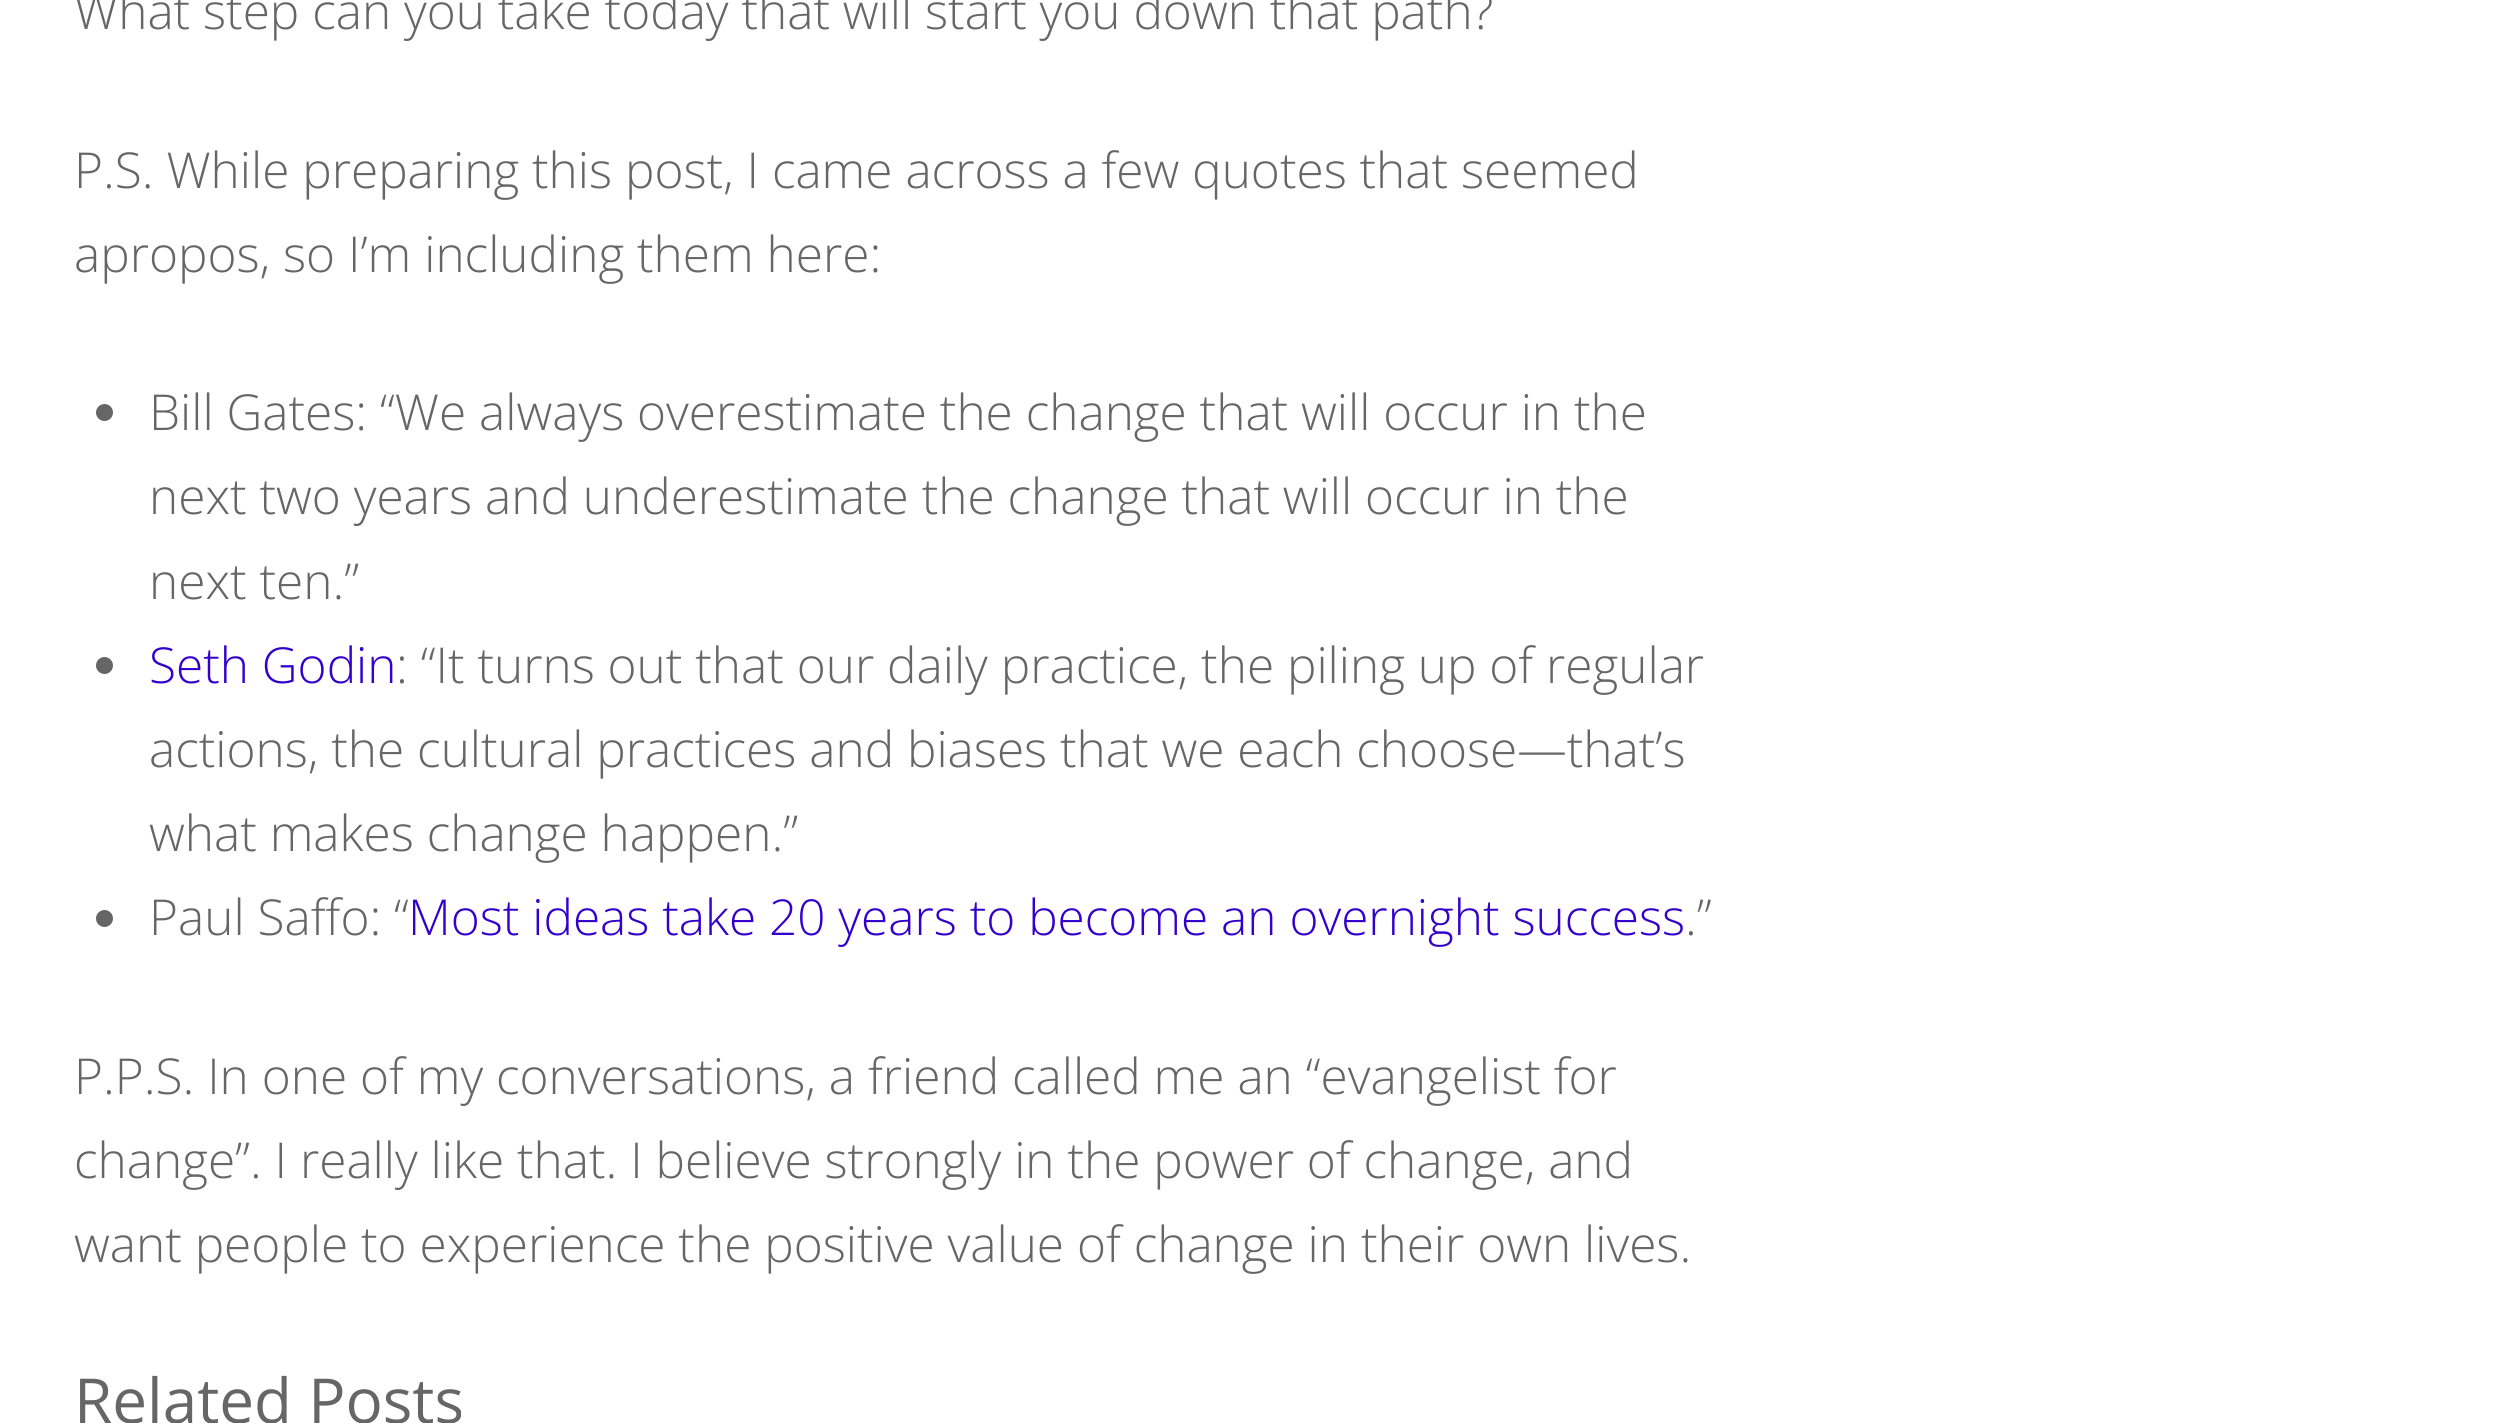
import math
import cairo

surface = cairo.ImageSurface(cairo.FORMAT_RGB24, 2498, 1423)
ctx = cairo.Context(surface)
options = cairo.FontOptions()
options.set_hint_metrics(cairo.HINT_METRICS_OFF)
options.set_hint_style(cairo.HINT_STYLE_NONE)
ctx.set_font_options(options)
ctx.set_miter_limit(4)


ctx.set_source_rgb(1, 1, 1)
ctx.paint()
ctx.select_font_face("Open Sans Light")
ctx.set_font_size(49.5)
ctx.set_source_rgb(0.4, 0.4, 0.4)
ctx.move_to(74, 29)
ctx.show_text("What step can you take today that will start you down that path?")
ctx.move_to(74, 188)
ctx.show_text("P.S. While preparing this post, I came across a few quotes that seemed")
ctx.move_to(74, 272)
ctx.show_text("apropos, so I’m including them here:")
ctx.new_path()
ctx.arc(104.5, 412.5, 8.5, 0, 2 * math.pi)
ctx.fill()
ctx.move_to(149, 430)
ctx.show_text("Bill Gates: “We always overestimate the change that will occur in the")
ctx.move_to(149, 514)
ctx.show_text("next two years and underestimate the change that will occur in the")
ctx.move_to(149, 599)
ctx.show_text("next ten.”")
ctx.new_path()
ctx.arc(104.5, 665.5, 8.5, 0, 2 * math.pi)
ctx.fill()
ctx.set_source_rgb(0.2, 0, 0.8)
ctx.move_to(149, 683)
ctx.show_text("Seth Godin")
ctx.set_source_rgb(0.4, 0.4, 0.4)
ctx.move_to(396, 683)
ctx.show_text(": “It turns out that our daily practice, the piling up of regular")
ctx.move_to(149, 767)
ctx.show_text("actions, the cultural practices and biases that we each choose—that’s")
ctx.move_to(149, 851)
ctx.show_text("what makes change happen.”")
ctx.new_path()
ctx.arc(104.5, 918.5, 8.5, 0, 2 * math.pi)
ctx.fill()
ctx.move_to(149, 935)
ctx.show_text("Paul Saffo: “")
ctx.set_source_rgb(0.2, 0, 0.8)
ctx.move_to(408, 935)
ctx.show_text("Most ideas take 20 years to become an overnight success")
ctx.set_source_rgb(0.4, 0.4, 0.4)
ctx.move_to(1685, 935)
ctx.show_text(".”")
ctx.move_to(74, 1094)
ctx.show_text("P.P.S. In one of my conversations, a friend called me an “evangelist for")
ctx.move_to(74, 1178)
ctx.show_text("change”. I really like that. I believe strongly in the power of change, and")
ctx.move_to(74, 1262)
ctx.show_text("want people to experience the positive value of change in their own lives.")
ctx.select_font_face("Open Sans")
ctx.set_font_size(62)
ctx.move_to(74, 1423)
ctx.show_text("Related Posts")
surface.write_to_png("page.png")
